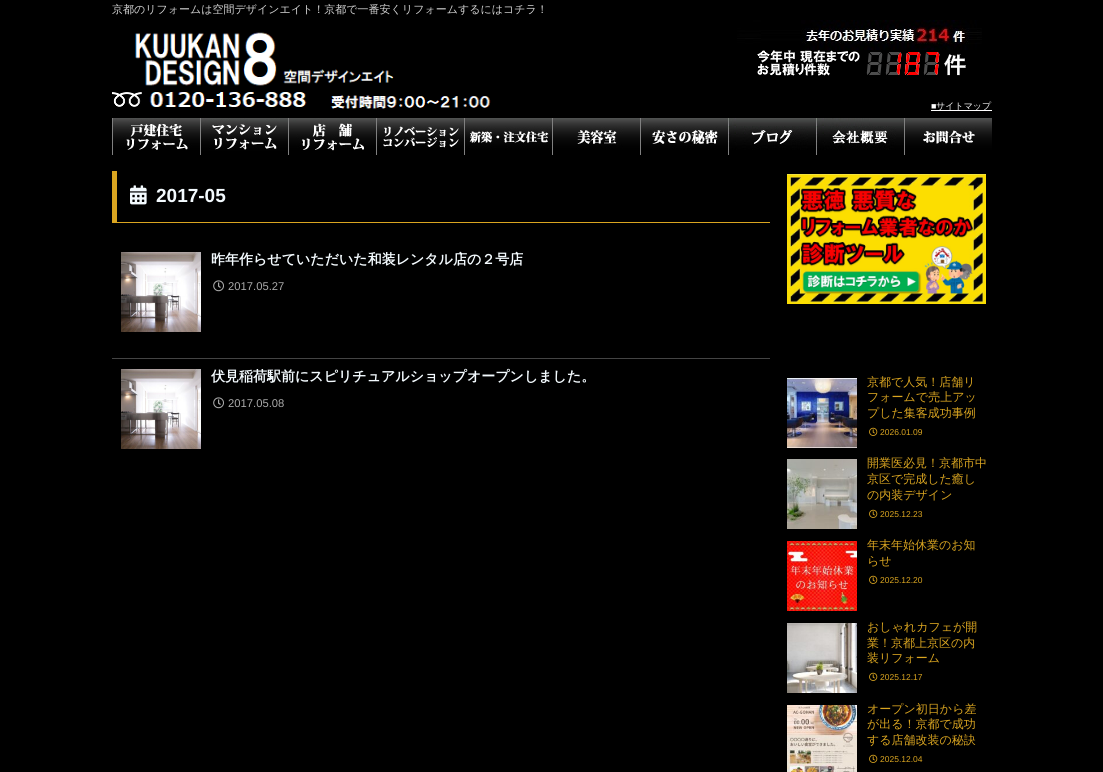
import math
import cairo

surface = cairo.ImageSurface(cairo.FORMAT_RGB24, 1103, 772)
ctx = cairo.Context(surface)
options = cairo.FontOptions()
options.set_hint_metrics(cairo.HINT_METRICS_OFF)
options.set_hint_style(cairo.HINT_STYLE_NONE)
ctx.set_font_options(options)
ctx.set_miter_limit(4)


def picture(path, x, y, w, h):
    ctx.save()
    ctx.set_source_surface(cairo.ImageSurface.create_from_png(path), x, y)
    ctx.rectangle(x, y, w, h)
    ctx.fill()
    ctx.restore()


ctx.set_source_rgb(0, 0, 0)
ctx.paint()
ctx.select_font_face("WenQuanYi Zen Hei Medium")
ctx.set_font_size(11)
ctx.set_source_rgb(0.827, 0.827, 0.827)
ctx.move_to(112, 13)
ctx.show_text("京都のリフォームは空間デザインエイト！京都で一番安くリフォームするにはコチラ！")
picture("img1.png", 135, 32, 259, 54)
picture("img2.png", 112, 92, 379, 17)
picture("img3.png", 737, 20, 245, 56)
ctx.select_font_face("Liberation Sans")
ctx.set_font_size(9)
ctx.set_source_rgb(1, 1, 1)
ctx.move_to(931, 109)
ctx.show_text("■")
ctx.rectangle(931, 110, 61, 1)
ctx.fill()
ctx.select_font_face("WenQuanYi Zen Hei Medium")
ctx.move_to(936, 109)
ctx.show_text("サイトマップ")
picture("img4.png", 112, 118, 88, 37)
picture("img5.png", 200, 118, 88, 37)
picture("img6.png", 288, 118, 88, 37)
picture("img7.png", 376, 118, 88, 37)
picture("img8.png", 464, 118, 88, 37)
picture("img9.png", 552, 118, 88, 37)
picture("img10.png", 640, 118, 88, 37)
picture("img11.png", 728, 118, 88, 37)
picture("img12.png", 816, 118, 88, 37)
picture("img13.png", 904, 118, 88, 37)
ctx.set_source_rgb(0.855, 0.647, 0.125)
ctx.rectangle(112, 222, 658, 1)
ctx.fill()
ctx.rectangle(112, 171, 5, 52)
ctx.fill()
picture("img14.png", 130, 185, 17, 20)
ctx.select_font_face("Liberation Sans", cairo.FONT_SLANT_NORMAL, cairo.FONT_WEIGHT_BOLD)
ctx.set_font_size(19)
ctx.set_source_rgb(0.953, 0.98, 0.996)
ctx.move_to(156, 202)
ctx.show_text("2017-05")
picture("img15.png", 121, 252, 80, 80)
ctx.select_font_face("WenQuanYi Zen Hei", cairo.FONT_SLANT_NORMAL, cairo.FONT_WEIGHT_BOLD)
ctx.set_font_size(14)
ctx.move_to(211, 264)
ctx.show_text("昨年作らせていただいた和装レンタル店の２号店")
picture("img16.png", 213, 280, 11, 12)
ctx.select_font_face("Liberation Sans")
ctx.set_font_size(11.25)
ctx.set_source_rgb(0.667, 0.667, 0.667)
ctx.move_to(228, 290)
ctx.show_text("2017.05.27")
ctx.set_source_rgb(0.267, 0.267, 0.267)
ctx.rectangle(112, 358, 658, 1)
ctx.fill()
picture("img15.png", 121, 369, 80, 80)
ctx.select_font_face("WenQuanYi Zen Hei", cairo.FONT_SLANT_NORMAL, cairo.FONT_WEIGHT_BOLD)
ctx.set_font_size(14)
ctx.set_source_rgb(0.953, 0.98, 0.996)
ctx.move_to(211, 381)
ctx.show_text("伏見稲荷駅前にスピリチュアルショップオープンしました。")
picture("img16.png", 213, 397, 11, 12)
ctx.select_font_face("Liberation Sans")
ctx.set_font_size(11.25)
ctx.set_source_rgb(0.667, 0.667, 0.667)
ctx.move_to(228, 407)
ctx.show_text("2017.05.08")
picture("img17.png", 787, 174, 199, 130)
picture("img18.png", 787, 378, 70, 70)
ctx.select_font_face("WenQuanYi Zen Hei Medium")
ctx.set_font_size(12)
ctx.set_source_rgb(0.855, 0.647, 0.125)
ctx.move_to(867, 386)
ctx.show_text("京都で人気！店舗リ")
ctx.move_to(867, 401)
ctx.show_text("フォームで売上アッ")
ctx.move_to(867, 417)
ctx.show_text("プした集客成功事例")
picture("img19.png", 869, 427, 9, 9)
ctx.select_font_face("Liberation Sans")
ctx.set_font_size(8.5)
ctx.move_to(880, 435)
ctx.show_text("2026.01.09")
picture("img20.png", 787, 459, 70, 70)
ctx.select_font_face("WenQuanYi Zen Hei Medium")
ctx.set_font_size(12)
ctx.move_to(867, 467)
ctx.show_text("開業医必見！京都市中")
ctx.move_to(867, 483)
ctx.show_text("京区で完成した癒し")
ctx.move_to(867, 499)
ctx.show_text("の内装デザイン")
picture("img19.png", 869, 509, 9, 9)
ctx.select_font_face("Liberation Sans")
ctx.set_font_size(8.5)
ctx.move_to(880, 517)
ctx.show_text("2025.12.23")
picture("img21.png", 787, 541, 70, 70)
ctx.select_font_face("WenQuanYi Zen Hei Medium")
ctx.set_font_size(12)
ctx.move_to(867, 549)
ctx.show_text("年末年始休業のお知")
ctx.move_to(867, 565)
ctx.show_text("らせ")
picture("img19.png", 869, 575, 9, 9)
ctx.select_font_face("Liberation Sans")
ctx.set_font_size(8.5)
ctx.move_to(880, 583)
ctx.show_text("2025.12.20")
picture("img22.png", 787, 623, 70, 70)
ctx.select_font_face("WenQuanYi Zen Hei Medium")
ctx.set_font_size(12)
ctx.move_to(867, 631)
ctx.show_text("おしゃれカフェが開")
ctx.move_to(867, 647)
ctx.show_text("業！京都上京区の内")
ctx.move_to(867, 662)
ctx.show_text("装リフォーム")
picture("img19.png", 869, 672, 9, 9)
ctx.select_font_face("Liberation Sans")
ctx.set_font_size(8.5)
ctx.move_to(880, 680)
ctx.show_text("2025.12.17")
picture("img23.png", 787, 705, 70, 67)
ctx.select_font_face("WenQuanYi Zen Hei Medium")
ctx.set_font_size(12)
ctx.move_to(867, 713)
ctx.show_text("オープン初日から差")
ctx.move_to(867, 728)
ctx.show_text("が出る！京都で成功")
ctx.move_to(867, 744)
ctx.show_text("する店舗改装の秘訣")
picture("img19.png", 869, 754, 9, 9)
ctx.select_font_face("Liberation Sans")
ctx.set_font_size(8.5)
ctx.move_to(880, 762)
ctx.show_text("2025.12.04")
surface.write_to_png("page.png")
